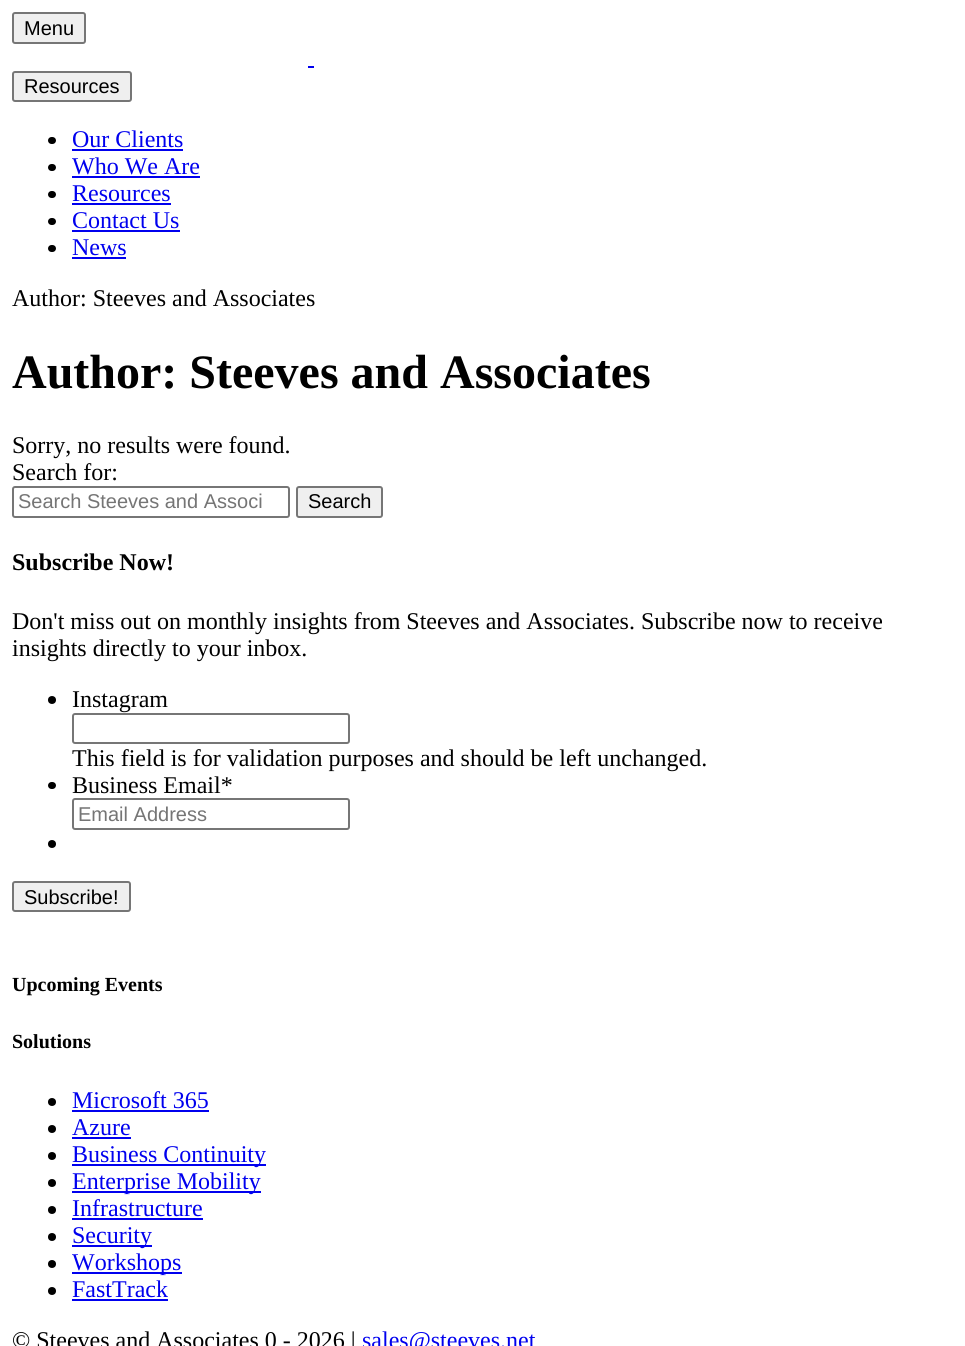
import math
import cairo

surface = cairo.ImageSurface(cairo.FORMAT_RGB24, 965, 1346)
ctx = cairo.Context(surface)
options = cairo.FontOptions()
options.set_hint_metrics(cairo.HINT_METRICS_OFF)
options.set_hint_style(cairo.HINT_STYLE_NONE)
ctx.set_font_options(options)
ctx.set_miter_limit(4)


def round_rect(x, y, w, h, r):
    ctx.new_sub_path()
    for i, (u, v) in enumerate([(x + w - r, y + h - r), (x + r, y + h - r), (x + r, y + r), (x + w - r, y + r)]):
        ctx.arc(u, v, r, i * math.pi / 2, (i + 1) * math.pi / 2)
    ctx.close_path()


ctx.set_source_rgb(1, 1, 1)
ctx.paint()
ctx.set_source_rgb(0.937, 0.937, 0.937)
round_rect(13, 13, 72, 30, 2)
ctx.fill_preserve()
ctx.set_source_rgb(0.463, 0.463, 0.463)
ctx.stroke()
ctx.select_font_face("Liberation Sans")
ctx.set_font_size(20)
ctx.set_source_rgb(0, 0, 0)
ctx.move_to(24, 35)
ctx.show_text("Menu")
ctx.set_source_rgb(0, 0, 0.933)
ctx.rectangle(308, 66, 6, 2)
ctx.fill()
ctx.set_source_rgb(0.937, 0.937, 0.937)
round_rect(13, 72, 118, 29, 2)
ctx.fill_preserve()
ctx.set_source_rgb(0.463, 0.463, 0.463)
ctx.stroke()
ctx.set_source_rgb(0, 0, 0)
ctx.move_to(24, 93)
ctx.show_text("Resources")
round_rect(48, 137, 8, 7, 3.5)
ctx.fill()
ctx.select_font_face("Liberation Serif")
ctx.set_font_size(24)
ctx.set_source_rgb(0, 0, 0.933)
ctx.move_to(72, 147)
ctx.show_text("Our Clients")
ctx.rectangle(72, 149, 111, 2)
ctx.fill()
ctx.set_source_rgb(0, 0, 0)
round_rect(48, 164, 8, 7, 3.5)
ctx.fill()
ctx.set_source_rgb(0, 0, 0.933)
ctx.move_to(72, 174)
ctx.show_text("Who We Are")
ctx.rectangle(72, 176, 128, 2)
ctx.fill()
ctx.set_source_rgb(0, 0, 0)
round_rect(48, 191, 8, 7, 3.5)
ctx.fill()
ctx.set_source_rgb(0, 0, 0.933)
ctx.move_to(72, 201)
ctx.show_text("Resources")
ctx.rectangle(72, 203, 99, 2)
ctx.fill()
ctx.set_source_rgb(0, 0, 0)
round_rect(48, 218, 8, 7, 3.5)
ctx.fill()
ctx.set_source_rgb(0, 0, 0.933)
ctx.move_to(72, 228)
ctx.show_text("Contact Us")
ctx.rectangle(72, 230, 108, 2)
ctx.fill()
ctx.set_source_rgb(0, 0, 0)
round_rect(48, 245, 8, 7, 3.5)
ctx.fill()
ctx.set_source_rgb(0, 0, 0.933)
ctx.move_to(72, 255)
ctx.show_text("News")
ctx.rectangle(72, 257, 54, 2)
ctx.fill()
ctx.set_source_rgb(0, 0, 0)
ctx.move_to(12, 306)
ctx.show_text("Author: Steeves and Associates")
ctx.select_font_face("Liberation Serif", cairo.FONT_SLANT_NORMAL, cairo.FONT_WEIGHT_BOLD)
ctx.set_font_size(48)
ctx.move_to(12, 388)
ctx.show_text("Author: Steeves and Associates")
ctx.select_font_face("Liberation Serif")
ctx.set_font_size(24)
ctx.move_to(12, 453)
ctx.show_text("Sorry, no results were found.")
ctx.move_to(12, 480)
ctx.show_text("Search for:")
round_rect(13, 487, 276, 30, 2)
ctx.set_source_rgb(0.463, 0.463, 0.463)
ctx.stroke()
ctx.select_font_face("Liberation Sans")
ctx.set_font_size(20)
ctx.set_source_rgb(0.459, 0.459, 0.459)
ctx.move_to(18, 508)
ctx.show_text("Search Steeves and Associ")
ctx.set_source_rgb(0.937, 0.937, 0.937)
round_rect(297, 487, 85, 30, 2)
ctx.fill_preserve()
ctx.set_source_rgb(0.463, 0.463, 0.463)
ctx.stroke()
ctx.set_source_rgb(0, 0, 0)
ctx.move_to(308, 508)
ctx.show_text("Search")
ctx.select_font_face("Liberation Serif", cairo.FONT_SLANT_NORMAL, cairo.FONT_WEIGHT_BOLD)
ctx.set_font_size(24)
ctx.move_to(12, 570)
ctx.show_text("Subscribe Now!")
ctx.select_font_face("Liberation Serif")
ctx.move_to(12, 629)
ctx.show_text("Don't miss out on monthly insights from Steeves and Associates. Subscribe now to receive")
ctx.move_to(12, 656)
ctx.show_text("insights directly to your inbox.")
ctx.new_path()
ctx.arc(52, 700, 4, 0, 2 * math.pi)
ctx.fill()
ctx.move_to(72, 707)
ctx.show_text("Instagram")
round_rect(73, 714, 276, 29, 2)
ctx.set_source_rgb(0.463, 0.463, 0.463)
ctx.stroke()
ctx.set_source_rgb(0, 0, 0)
ctx.move_to(72, 766)
ctx.show_text("This field is for validation purposes and should be left unchanged.")
round_rect(48, 782, 8, 7, 3.5)
ctx.fill()
ctx.move_to(72, 793)
ctx.show_text("Business Email*")
round_rect(73, 799, 276, 30, 2)
ctx.set_source_rgb(0.463, 0.463, 0.463)
ctx.stroke()
ctx.select_font_face("Liberation Sans")
ctx.set_font_size(20)
ctx.set_source_rgb(0.459, 0.459, 0.459)
ctx.move_to(78, 821)
ctx.show_text("Email Address")
ctx.set_source_rgb(0, 0, 0)
ctx.new_path()
ctx.arc(52, 844, 4, 0, 2 * math.pi)
ctx.fill()
ctx.set_source_rgb(0.937, 0.937, 0.937)
round_rect(13, 882, 117, 29, 2)
ctx.fill_preserve()
ctx.set_source_rgb(0.463, 0.463, 0.463)
ctx.stroke()
ctx.set_source_rgb(0, 0, 0)
ctx.move_to(24, 904)
ctx.show_text("Subscribe!")
ctx.select_font_face("Liberation Serif", cairo.FONT_SLANT_NORMAL, cairo.FONT_WEIGHT_BOLD)
ctx.move_to(12, 991)
ctx.show_text("Upcoming Events")
ctx.move_to(12, 1048)
ctx.show_text("Solutions")
ctx.new_path()
ctx.arc(52, 1102, 4, 0, 2 * math.pi)
ctx.fill()
ctx.select_font_face("Liberation Serif")
ctx.set_font_size(24)
ctx.set_source_rgb(0, 0, 0.933)
ctx.move_to(72, 1108)
ctx.show_text("Microsoft 365")
ctx.rectangle(72, 1110, 137, 2)
ctx.fill()
ctx.set_source_rgb(0, 0, 0)
ctx.arc(52, 1129, 4, 0, 2 * math.pi)
ctx.fill()
ctx.set_source_rgb(0, 0, 0.933)
ctx.move_to(72, 1135)
ctx.show_text("Azure")
ctx.rectangle(72, 1137, 59, 2)
ctx.fill()
ctx.set_source_rgb(0, 0, 0)
ctx.arc(52, 1156, 4, 0, 2 * math.pi)
ctx.fill()
ctx.set_source_rgb(0, 0, 0.933)
ctx.rectangle(72, 1164, 194, 2)
ctx.fill()
ctx.move_to(72, 1162)
ctx.show_text("Business Continuity")
ctx.set_source_rgb(0, 0, 0)
ctx.new_path()
ctx.arc(52, 1183, 4, 0, 2 * math.pi)
ctx.fill()
ctx.set_source_rgb(0, 0, 0.933)
ctx.rectangle(72, 1191, 189, 2)
ctx.fill()
ctx.move_to(72, 1189)
ctx.show_text("Enterprise Mobility")
ctx.set_source_rgb(0, 0, 0)
ctx.new_path()
ctx.arc(52, 1210, 4, 0, 2 * math.pi)
ctx.fill()
ctx.set_source_rgb(0, 0, 0.933)
ctx.move_to(72, 1216)
ctx.show_text("Infrastructure")
ctx.rectangle(72, 1218, 131, 2)
ctx.fill()
ctx.set_source_rgb(0, 0, 0)
ctx.arc(52, 1237, 4, 0, 2 * math.pi)
ctx.fill()
ctx.set_source_rgb(0, 0, 0.933)
ctx.rectangle(72, 1245, 80, 2)
ctx.fill()
ctx.move_to(72, 1243)
ctx.show_text("Security")
ctx.set_source_rgb(0, 0, 0)
ctx.new_path()
ctx.arc(52, 1264, 4, 0, 2 * math.pi)
ctx.fill()
ctx.set_source_rgb(0, 0, 0.933)
ctx.rectangle(72, 1272, 110, 2)
ctx.fill()
ctx.move_to(72, 1270)
ctx.show_text("Workshops")
ctx.set_source_rgb(0, 0, 0)
ctx.new_path()
ctx.arc(52, 1291, 4, 0, 2 * math.pi)
ctx.fill()
ctx.set_source_rgb(0, 0, 0.933)
ctx.move_to(72, 1297)
ctx.show_text("FastTrack")
ctx.rectangle(72, 1299, 96, 2)
ctx.fill()
ctx.set_source_rgb(0, 0, 0)
ctx.move_to(12, 1348)
ctx.show_text("© Steeves and Associates 0 - 2026 |")
ctx.set_source_rgb(0, 0, 0.933)
ctx.move_to(362, 1348)
ctx.show_text("sales@steeves.net")
surface.write_to_png("page.png")
